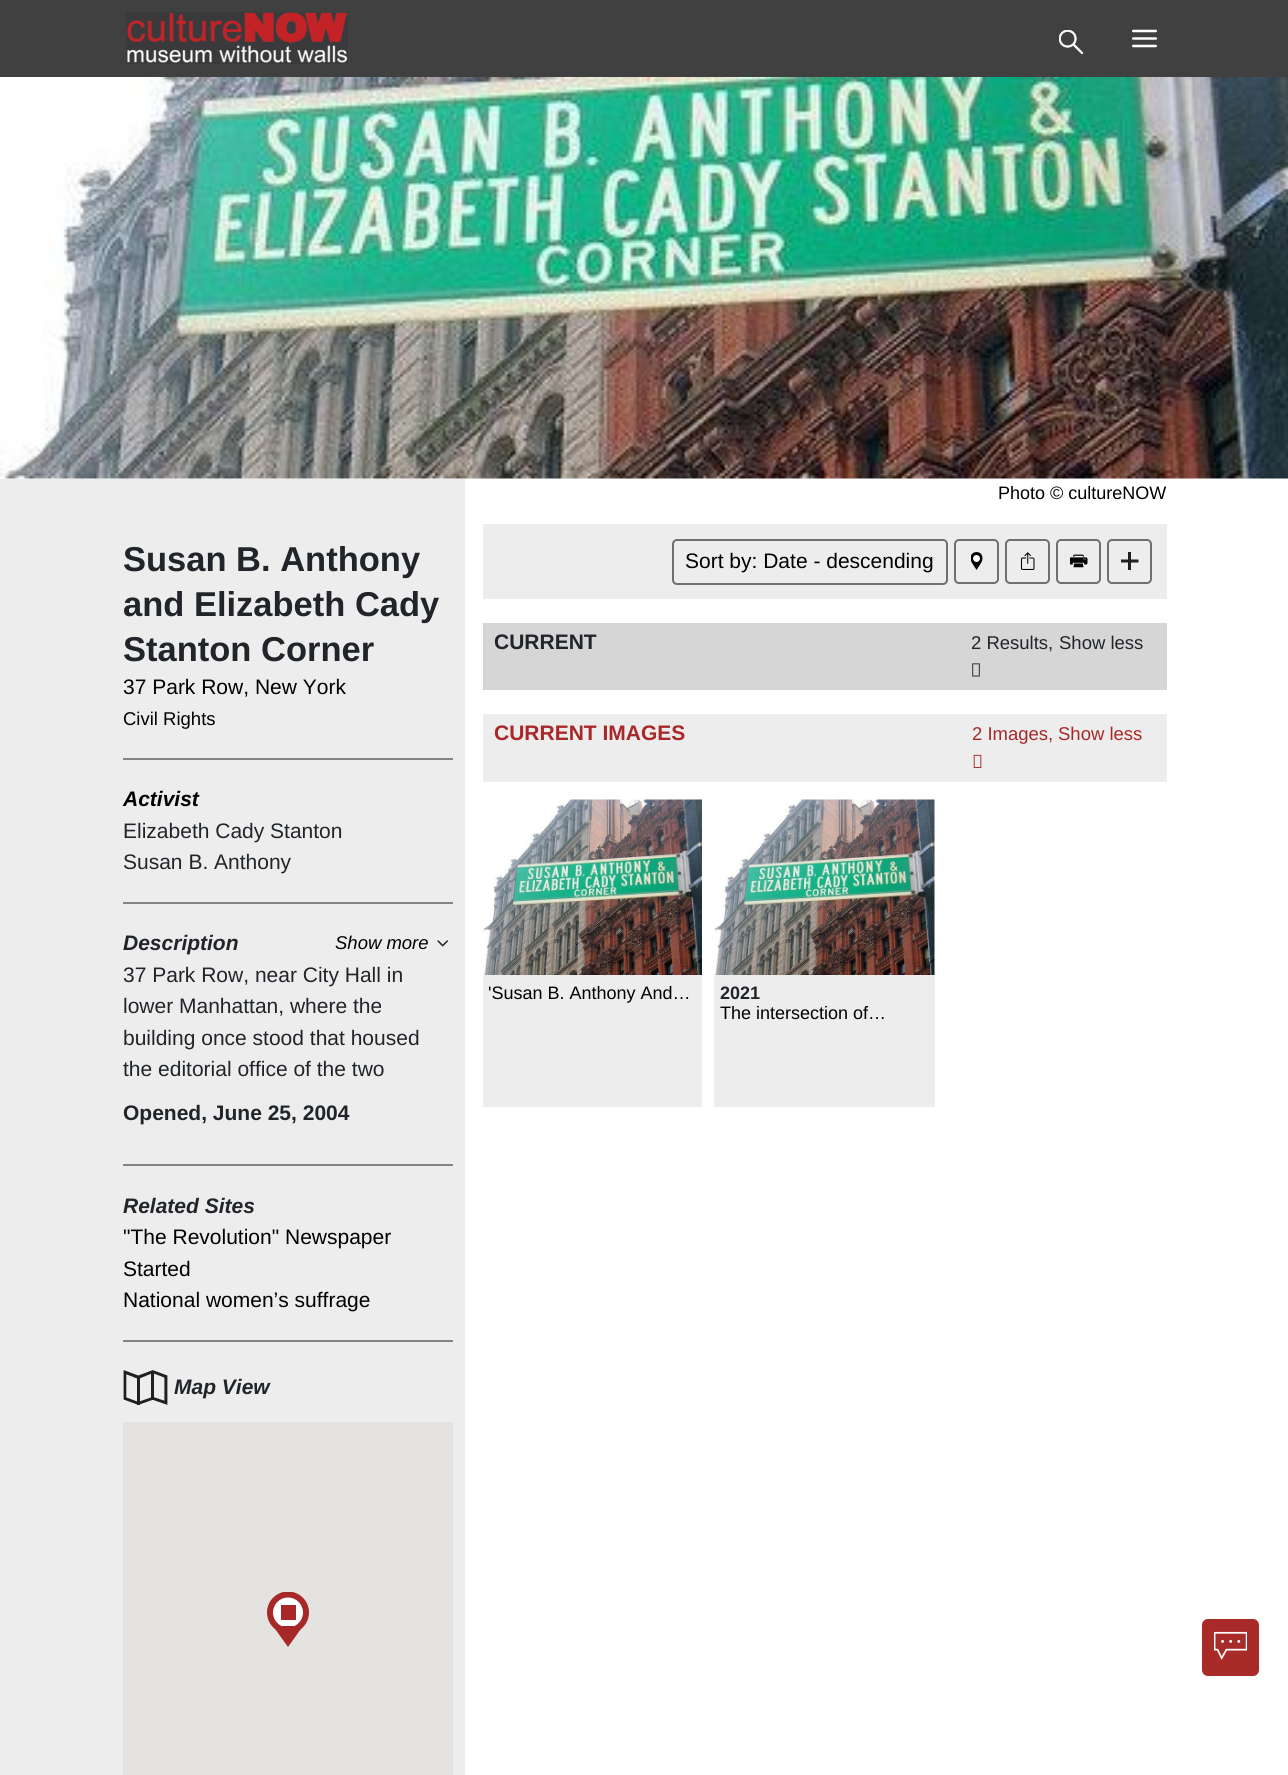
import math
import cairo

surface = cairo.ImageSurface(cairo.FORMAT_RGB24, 1288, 1775)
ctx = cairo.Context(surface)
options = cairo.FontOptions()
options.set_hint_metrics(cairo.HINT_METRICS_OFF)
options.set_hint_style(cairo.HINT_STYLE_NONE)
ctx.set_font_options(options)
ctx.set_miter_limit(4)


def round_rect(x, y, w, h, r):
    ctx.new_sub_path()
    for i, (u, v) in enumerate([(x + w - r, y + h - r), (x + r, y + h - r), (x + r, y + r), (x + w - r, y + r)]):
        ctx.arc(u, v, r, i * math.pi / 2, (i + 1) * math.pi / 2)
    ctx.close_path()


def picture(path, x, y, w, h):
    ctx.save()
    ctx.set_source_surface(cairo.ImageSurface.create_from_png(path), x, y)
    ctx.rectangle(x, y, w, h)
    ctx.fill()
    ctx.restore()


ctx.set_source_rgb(1, 1, 1)
ctx.paint()
ctx.set_source_rgb(0.251, 0.251, 0.251)
ctx.rectangle(0, 0, 1288, 77)
ctx.fill()
picture("img1.png", 126, 12, 222, 52)
picture("img2.png", 1059, 30, 24, 24)
picture("img3.png", 1132, 29, 25, 19)
picture("img4.png", 0, 77, 1288, 402)
ctx.set_source_rgb(0.929, 0.929, 0.929)
ctx.rectangle(0, 479, 105, 1296)
ctx.fill()
ctx.rectangle(105, 479, 360, 1296)
ctx.fill()
ctx.select_font_face("Liberation Sans")
ctx.set_font_size(18)
ctx.set_source_rgb(0, 0, 0)
ctx.move_to(998, 499)
ctx.show_text("Photo © cultureNOW")
ctx.select_font_face("Liberation Sans", cairo.FONT_SLANT_NORMAL, cairo.FONT_WEIGHT_BOLD)
ctx.set_font_size(34.5)
ctx.set_source_rgb(0.129, 0.145, 0.161)
ctx.move_to(123, 571)
ctx.show_text("Susan B. Anthony")
ctx.move_to(123, 616)
ctx.show_text("and Elizabeth Cady")
ctx.move_to(123, 661)
ctx.show_text("Stanton Corner")
ctx.select_font_face("Liberation Sans")
ctx.set_font_size(21)
ctx.set_source_rgb(0, 0, 0)
ctx.move_to(123, 694)
ctx.show_text("37 Park Row, New York")
ctx.set_font_size(18.5)
ctx.move_to(123, 725)
ctx.show_text("Civil Rights")
ctx.set_source_rgb(0.51, 0.51, 0.51)
ctx.rectangle(123, 758, 330, 2)
ctx.fill()
ctx.select_font_face("Liberation Sans", cairo.FONT_SLANT_ITALIC, cairo.FONT_WEIGHT_BOLD)
ctx.set_font_size(21)
ctx.set_source_rgb(0, 0, 0)
ctx.move_to(123, 806)
ctx.show_text("Activist")
ctx.select_font_face("Liberation Sans")
ctx.set_source_rgb(0.129, 0.145, 0.161)
ctx.move_to(123, 838)
ctx.show_text("Elizabeth Cady Stanton")
ctx.move_to(123, 869)
ctx.show_text("Susan B. Anthony")
ctx.set_source_rgb(0.51, 0.51, 0.51)
ctx.rectangle(123, 902, 330, 2)
ctx.fill()
ctx.select_font_face("Liberation Sans", cairo.FONT_SLANT_ITALIC, cairo.FONT_WEIGHT_BOLD)
ctx.set_source_rgb(0.129, 0.145, 0.161)
ctx.move_to(123, 950)
ctx.show_text("Description")
ctx.select_font_face("Liberation Sans", cairo.FONT_SLANT_ITALIC)
ctx.set_font_size(18.5)
ctx.set_source_rgb(0, 0, 0)
ctx.move_to(335, 949)
ctx.show_text("Show more")
picture("img5.png", 437, 940, 11, 7)
ctx.select_font_face("Liberation Sans")
ctx.set_font_size(21)
ctx.set_source_rgb(0.129, 0.145, 0.161)
ctx.move_to(123, 982)
ctx.show_text("37 Park Row, near City Hall in")
ctx.move_to(123, 1013)
ctx.show_text("lower Manhattan, where the")
ctx.move_to(123, 1045)
ctx.show_text("building once stood that housed")
ctx.move_to(123, 1076)
ctx.show_text("the editorial office of the two")
ctx.select_font_face("Liberation Sans", cairo.FONT_SLANT_NORMAL, cairo.FONT_WEIGHT_BOLD)
ctx.move_to(123, 1120)
ctx.show_text("Opened, June 25, 2004")
ctx.set_source_rgb(0.51, 0.51, 0.51)
ctx.rectangle(123, 1164, 330, 2)
ctx.fill()
ctx.select_font_face("Liberation Sans", cairo.FONT_SLANT_ITALIC, cairo.FONT_WEIGHT_BOLD)
ctx.set_source_rgb(0.129, 0.145, 0.161)
ctx.move_to(123, 1213)
ctx.show_text("Related Sites")
ctx.select_font_face("Liberation Sans")
ctx.set_source_rgb(0, 0, 0)
ctx.move_to(123, 1244)
ctx.show_text("\"The Revolution\" Newspaper")
ctx.move_to(123, 1276)
ctx.show_text("Started")
ctx.move_to(123, 1307)
ctx.show_text("National women’s suffrage")
ctx.set_source_rgb(0.51, 0.51, 0.51)
ctx.rectangle(123, 1340, 330, 2)
ctx.fill()
picture("img6.png", 123, 1370, 45, 35)
ctx.select_font_face("Liberation Sans", cairo.FONT_SLANT_ITALIC, cairo.FONT_WEIGHT_BOLD)
ctx.set_source_rgb(0.129, 0.145, 0.161)
ctx.move_to(174, 1394)
ctx.show_text("Map View")
ctx.set_source_rgb(0.898, 0.89, 0.875)
ctx.rectangle(123, 1422, 330, 353)
ctx.fill()
picture("img7.png", 267, 1592, 42, 55)
ctx.set_source_rgb(0.929, 0.929, 0.929)
ctx.rectangle(483, 524, 684, 75)
ctx.fill()
round_rect(673, 540, 274, 44, 4)
ctx.set_source_rgb(0.439, 0.439, 0.439)
ctx.stroke()
ctx.select_font_face("Liberation Sans")
ctx.set_source_rgb(0, 0, 0)
ctx.move_to(685, 568)
ctx.show_text("Sort by: Date - descending")
round_rect(955, 540, 43, 43, 4)
ctx.set_source_rgb(0.439, 0.439, 0.439)
ctx.stroke()
picture("img8.png", 971, 552, 12, 18)
round_rect(1006, 540, 43, 43, 4)
ctx.stroke()
picture("img9.png", 1020, 552, 15, 18)
round_rect(1057, 540, 43, 43, 4)
ctx.stroke()
picture("img10.png", 1070, 554, 18, 14)
round_rect(1108, 540, 43, 43, 4)
ctx.stroke()
ctx.set_source_rgb(0.137, 0.122, 0.125)
ctx.rectangle(1128, 552, 3, 18)
ctx.fill()
ctx.save()
ctx.rectangle(1121, 552, 18, 18)
ctx.clip()
ctx.new_path()
ctx.move_to(1138.5, 561)
ctx.line_to(1120.5, 561)
ctx.set_line_width(3)
ctx.stroke()
ctx.restore()
ctx.set_source_rgb(0.839, 0.839, 0.839)
ctx.rectangle(483, 623, 684, 67)
ctx.fill()
ctx.select_font_face("Liberation Sans", cairo.FONT_SLANT_NORMAL, cairo.FONT_WEIGHT_BOLD)
ctx.set_source_rgb(0.129, 0.145, 0.161)
ctx.move_to(494, 649)
ctx.show_text("CURRENT")
ctx.select_font_face("Liberation Sans")
ctx.set_font_size(18.5)
ctx.move_to(971, 649)
ctx.show_text("2 Results,")
ctx.move_to(1059, 649)
ctx.show_text("Show less")
picture("img11.png", 972, 663, 8, 14)
ctx.set_source_rgb(0.929, 0.929, 0.929)
ctx.rectangle(483, 714, 684, 68)
ctx.fill()
ctx.select_font_face("Liberation Sans", cairo.FONT_SLANT_NORMAL, cairo.FONT_WEIGHT_BOLD)
ctx.set_font_size(21)
ctx.set_source_rgb(0.659, 0.157, 0.161)
ctx.move_to(494, 740)
ctx.show_text("CURRENT IMAGES")
ctx.select_font_face("Liberation Sans")
ctx.set_font_size(18.5)
ctx.move_to(972, 740)
ctx.show_text("2 Images,")
ctx.move_to(1058, 740)
ctx.show_text("Show less")
picture("img12.png", 973, 754, 9, 14)
ctx.set_source_rgb(0.929, 0.929, 0.929)
ctx.rectangle(483, 975, 219, 132)
ctx.fill()
picture("img13.png", 483, 799, 219, 176)
ctx.set_font_size(18)
ctx.set_source_rgb(0, 0, 0)
ctx.move_to(488, 999)
ctx.show_text("'Susan B. Anthony And…")
ctx.set_source_rgb(0.929, 0.929, 0.929)
ctx.rectangle(714, 975, 221, 132)
ctx.fill()
picture("img14.png", 714, 799, 221, 176)
ctx.select_font_face("Liberation Sans", cairo.FONT_SLANT_NORMAL, cairo.FONT_WEIGHT_BOLD)
ctx.set_source_rgb(0.129, 0.145, 0.161)
ctx.move_to(720, 999)
ctx.show_text("2021")
ctx.select_font_face("Liberation Sans")
ctx.set_source_rgb(0, 0, 0)
ctx.move_to(720, 1019)
ctx.show_text("The intersection of…")
ctx.set_source_rgb(0.659, 0.165, 0.161)
round_rect(1202, 1619, 57, 57, 6)
ctx.fill()
picture("img15.png", 1214, 1631, 33, 29)
surface.write_to_png("page.png")
